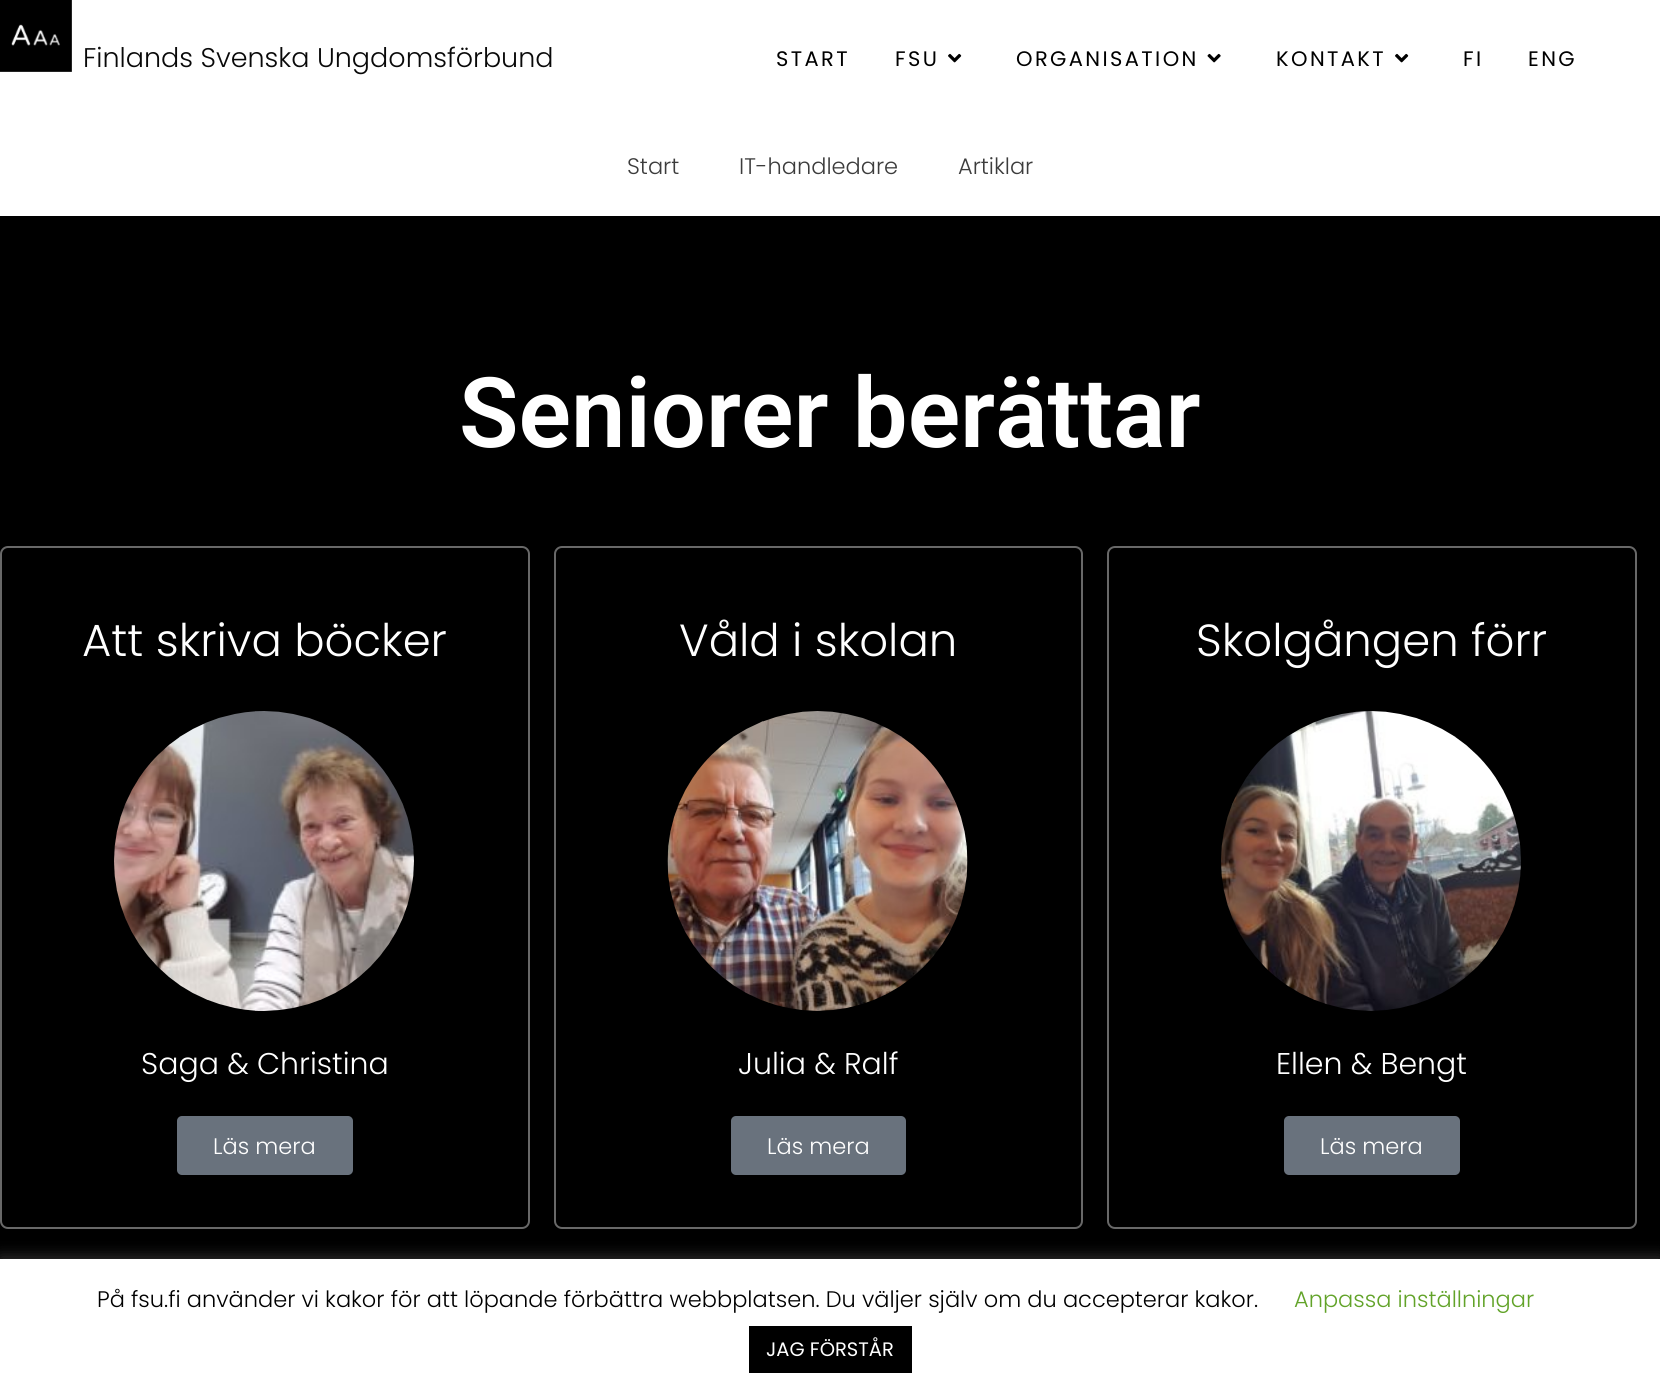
import math
import cairo

surface = cairo.ImageSurface(cairo.FORMAT_RGB24, 1660, 1397)
ctx = cairo.Context(surface)
options = cairo.FontOptions()
options.set_hint_metrics(cairo.HINT_METRICS_OFF)
options.set_hint_style(cairo.HINT_STYLE_NONE)
ctx.set_font_options(options)
ctx.set_miter_limit(4)


def spaced_text(x, y, s, letter, word):
    ctx.move_to(x, y)
    for ch in s:
        ctx.show_text(ch)
        ctx.rel_move_to(letter + word * (ch == ' '), 0)


def round_rect(x, y, w, h, r):
    ctx.new_sub_path()
    for i, (u, v) in enumerate([(x + w - r, y + h - r), (x + r, y + h - r), (x + r, y + r), (x + w - r, y + r)]):
        ctx.arc(u, v, r, i * math.pi / 2, (i + 1) * math.pi / 2)
    ctx.close_path()


def shadow(x, y, w, h, r, blur, alpha):
    ctx.push_group_with_content(cairo.CONTENT_ALPHA)
    ctx.set_operator(cairo.OPERATOR_SOURCE)
    for i in range(15, -16, -2):
        e = blur * i / 6
        if min(w, h) + 2 * e > 0:
            ctx.set_source_rgba(0, 0, 0, alpha * math.erfc((i - 1) / 8.5) / 2)
            round_rect(x - e, y - e, w + 2 * e, h + 2 * e, max(0, min(r + e + blur * .6, min(w, h) / 2 + e)))
            ctx.fill()
    ctx.mask(ctx.pop_group())


def picture(path, x, y, w, h):
    ctx.save()
    ctx.set_source_surface(cairo.ImageSurface.create_from_png(path), x, y)
    ctx.rectangle(x, y, w, h)
    ctx.fill()
    ctx.restore()


ctx.set_source_rgb(1, 1, 1)
ctx.paint()
picture("img1.png", 0, 0, 72, 72)
ctx.select_font_face("Poppins Light")
ctx.set_font_size(27)
ctx.set_source_rgb(0.039, 0.039, 0.039)
ctx.move_to(83, 67)
ctx.show_text("Finlands Svenska Ungdomsförbund")
ctx.select_font_face("Poppins")
ctx.set_font_size(21)
ctx.set_source_rgb(0, 0, 0)
spaced_text(776, 66, "START", 2.4, 0)
spaced_text(895, 66, "FSU", 2.4, 0)
picture("img2.png", 948, 53, 14, 10)
spaced_text(1016, 66, "ORGANISATION", 2.4, 0)
picture("img3.png", 1207, 53, 14, 10)
spaced_text(1276, 66, "KONTAKT", 2.4, 0)
picture("img2.png", 1395, 53, 14, 10)
spaced_text(1463, 66, "FI", 2.4, 0)
spaced_text(1528, 66, "ENG", 2.4, 0)
ctx.select_font_face("Poppins Light")
ctx.set_font_size(22.5)
ctx.set_source_rgb(0.235, 0.235, 0.235)
ctx.move_to(627, 174)
ctx.show_text("Start")
ctx.move_to(739, 174)
ctx.show_text("IT-handledare")
ctx.move_to(958, 174)
ctx.show_text("Artiklar")
ctx.set_source_rgb(0, 0, 0)
ctx.rectangle(0, 216, 1660, 1043)
ctx.fill()
ctx.select_font_face("Roboto SemiBold")
ctx.set_font_size(97.5)
ctx.set_source_rgb(1, 1, 1)
ctx.move_to(459, 447)
ctx.show_text("Seniorer berättar")
round_rect(1, 547, 528, 681, 7)
ctx.set_source_rgb(0.408, 0.408, 0.408)
ctx.stroke()
ctx.select_font_face("Poppins Light")
ctx.set_font_size(45)
ctx.set_source_rgb(1, 1, 1)
ctx.move_to(82, 656)
ctx.show_text("Att skriva böcker")
picture("img4.png", 114, 711, 300, 300)
ctx.set_font_size(30)
ctx.move_to(141, 1074)
ctx.show_text("Saga & Christina")
ctx.set_source_rgb(0.412, 0.447, 0.49)
round_rect(177, 1116, 176, 59, 5)
ctx.fill()
ctx.set_font_size(22.5)
ctx.set_source_rgb(1, 1, 1)
ctx.move_to(213, 1154)
ctx.show_text("Läs mera")
round_rect(555, 547, 527, 681, 7)
ctx.set_source_rgb(0.408, 0.408, 0.408)
ctx.stroke()
ctx.set_font_size(45)
ctx.set_source_rgb(1, 1, 1)
ctx.move_to(679, 656)
ctx.show_text("Våld i skolan")
picture("img5.png", 667, 711, 301, 300)
ctx.set_font_size(30)
ctx.move_to(738, 1074)
ctx.show_text("Julia & Ralf")
ctx.set_source_rgb(0.412, 0.447, 0.49)
round_rect(731, 1116, 175, 59, 5)
ctx.fill()
ctx.set_font_size(22.5)
ctx.set_source_rgb(1, 1, 1)
ctx.move_to(767, 1154)
ctx.show_text("Läs mera")
round_rect(1108, 547, 528, 681, 7)
ctx.set_source_rgb(0.408, 0.408, 0.408)
ctx.stroke()
ctx.set_font_size(45)
ctx.set_source_rgb(1, 1, 1)
ctx.move_to(1196, 656)
ctx.show_text("Skolgången förr")
picture("img6.png", 1221, 711, 300, 300)
ctx.set_font_size(30)
ctx.move_to(1276, 1074)
ctx.show_text("Ellen & Bengt")
ctx.set_source_rgb(0.412, 0.447, 0.49)
round_rect(1284, 1116, 176, 59, 5)
ctx.fill()
ctx.set_font_size(22.5)
ctx.set_source_rgb(1, 1, 1)
ctx.move_to(1320, 1154)
ctx.show_text("Läs mera")
ctx.set_source_rgb(0.675, 0.671, 0.671)
shadow(0, 1257, 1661, 140, 0, 7.5, 0.3)
ctx.set_source_rgb(1, 1, 1)
ctx.rectangle(0, 1259, 1660, 138)
ctx.fill()
ctx.set_source_rgb(0, 0, 0)
ctx.move_to(97, 1307)
ctx.show_text("På fsu.fi använder vi kakor för att löpande förbättra webbplatsen. Du väljer själv om du accepterar kakor.")
ctx.set_source_rgb(0.384, 0.639, 0.161)
ctx.move_to(1294, 1307)
ctx.show_text("Anpassa inställningar")
ctx.set_source_rgb(0, 0, 0)
ctx.rectangle(749, 1326, 163, 47)
ctx.fill()
ctx.select_font_face("Poppins")
ctx.set_font_size(19.5)
ctx.set_source_rgb(1, 1, 1)
ctx.move_to(766, 1356)
ctx.show_text("JAG FÖRSTÅR")
surface.write_to_png("page.png")
